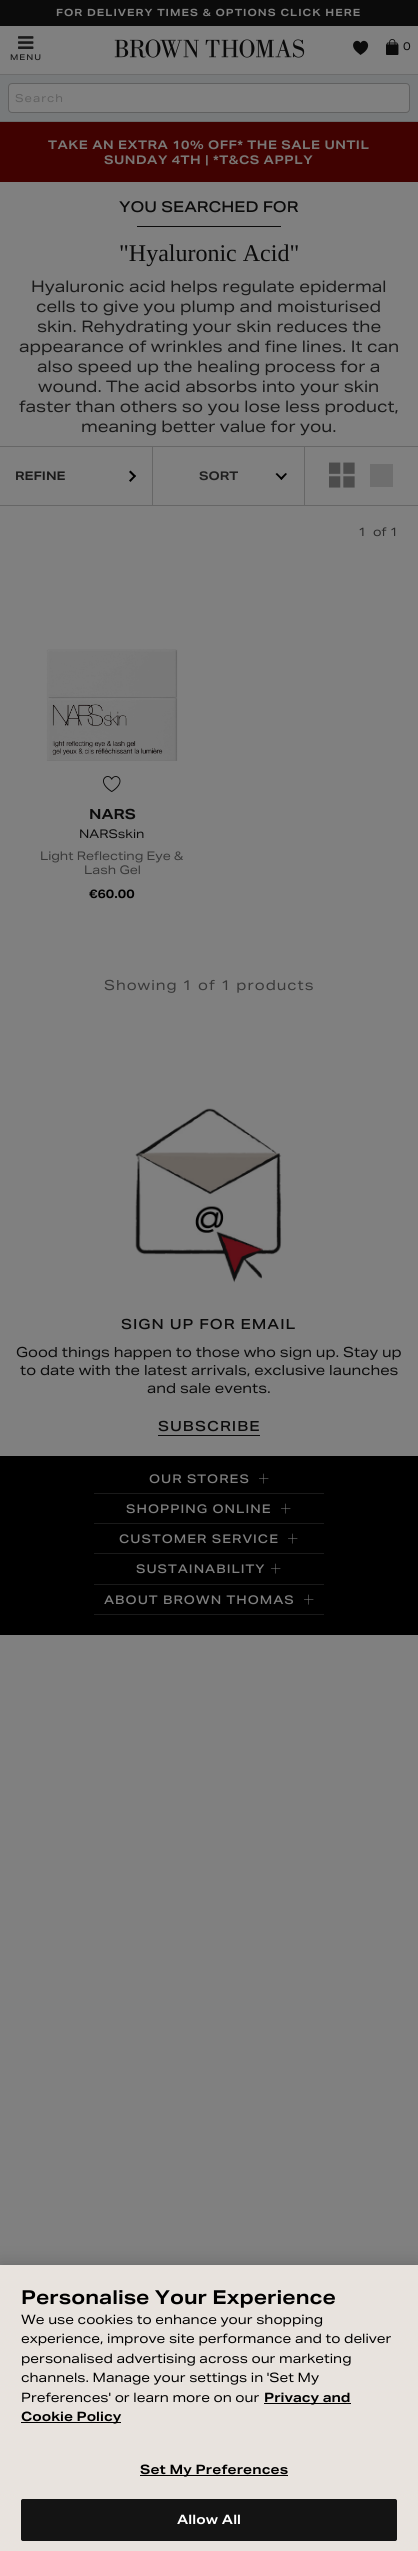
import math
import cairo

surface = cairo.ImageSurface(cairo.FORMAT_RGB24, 418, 2551)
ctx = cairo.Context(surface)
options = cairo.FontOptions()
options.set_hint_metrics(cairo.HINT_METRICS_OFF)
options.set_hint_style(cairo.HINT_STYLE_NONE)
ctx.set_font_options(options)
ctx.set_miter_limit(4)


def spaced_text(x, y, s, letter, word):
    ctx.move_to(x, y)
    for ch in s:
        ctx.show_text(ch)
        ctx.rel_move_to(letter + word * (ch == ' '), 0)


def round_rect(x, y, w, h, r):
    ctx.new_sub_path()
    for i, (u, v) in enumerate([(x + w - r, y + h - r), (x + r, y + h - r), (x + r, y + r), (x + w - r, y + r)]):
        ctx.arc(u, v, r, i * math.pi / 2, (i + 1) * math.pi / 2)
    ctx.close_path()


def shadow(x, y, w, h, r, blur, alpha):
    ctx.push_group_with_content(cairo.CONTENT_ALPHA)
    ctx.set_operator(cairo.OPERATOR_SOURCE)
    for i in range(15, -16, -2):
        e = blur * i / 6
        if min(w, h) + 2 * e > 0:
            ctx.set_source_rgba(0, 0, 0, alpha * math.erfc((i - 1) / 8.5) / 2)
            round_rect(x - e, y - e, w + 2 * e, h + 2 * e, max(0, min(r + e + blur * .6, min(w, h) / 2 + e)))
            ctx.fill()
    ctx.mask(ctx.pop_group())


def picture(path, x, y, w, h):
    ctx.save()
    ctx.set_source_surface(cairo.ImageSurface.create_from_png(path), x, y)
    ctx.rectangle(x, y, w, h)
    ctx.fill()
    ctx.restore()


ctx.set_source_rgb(0.502, 0.502, 0.502)
ctx.paint()
ctx.set_source_rgb(0.043, 0.043, 0.043)
ctx.rectangle(0, 0, 418, 26)
ctx.fill()
ctx.select_font_face("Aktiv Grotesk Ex", cairo.FONT_SLANT_NORMAL, cairo.FONT_WEIGHT_BOLD)
ctx.set_font_size(10)
ctx.set_source_rgb(0.502, 0.502, 0.502)
spaced_text(56, 16, "FOR DELIVERY TIMES & OPTIONS CLICK HERE", 1, 0)
picture("img1.png", 114, 39, 191, 19)
ctx.set_source_rgb(0.043, 0.043, 0.043)
ctx.new_path()
ctx.move_to(360.5, 55)
ctx.line_to(357.5, 52.5)
ctx.curve_to(347.5, 44.5, 357, 37, 360.5, 43)
ctx.curve_to(364, 37, 373.5, 44.5, 364, 52.5)
ctx.close_path()
ctx.fill()
picture("img2.png", 386, 39, 13, 16)
ctx.select_font_face("Aktiv Grotesk Ex")
ctx.set_font_size(11)
spaced_text(403, 50, "0", 1, 0)
ctx.set_source_rgb(0.467, 0.475, 0.478)
ctx.rectangle(0, 75, 418, 46)
ctx.fill()
ctx.set_source_rgb(0.42, 0.42, 0.42)
ctx.rectangle(0, 74, 418, 1)
ctx.fill()
ctx.rectangle(0, 121, 418, 1)
ctx.fill()
ctx.set_source_rgb(0.502, 0.502, 0.502)
round_rect(8.5, 83.5, 401, 29, 3.5)
ctx.fill_preserve()
ctx.set_source_rgb(0.376, 0.376, 0.376)
ctx.set_line_width(1)
ctx.stroke()
spaced_text(15, 102, "Search", 1, 0)
picture("img3.png", 18, 36, 16, 13)
ctx.select_font_face("Aktiv Grotesk Ex Medium")
ctx.set_font_size(8)
ctx.set_source_rgb(0.102, 0.102, 0.102)
spaced_text(10, 60, "MENU", 1, 0)
ctx.set_source_rgb(0.251, 0.008, 0.004)
ctx.rectangle(0, 122, 418, 60)
ctx.fill()
ctx.select_font_face("Aktiv Grotesk Ex", cairo.FONT_SLANT_NORMAL, cairo.FONT_WEIGHT_BOLD)
ctx.set_font_size(12)
ctx.set_source_rgb(0.475, 0.467, 0.459)
spaced_text(48, 149, "TAKE AN EXTRA 10% OFF* THE SALE UNTIL", 0.5, 0)
spaced_text(104, 164, "SUNDAY 4TH | *T&CS APPLY", 0.5, 0)
ctx.select_font_face("Aktiv Grotesk Ex Medium")
ctx.set_font_size(15)
ctx.set_source_rgb(0.043, 0.043, 0.043)
ctx.move_to(119, 212)
ctx.show_text("YOU SEARCHED FOR")
ctx.rectangle(137, 226, 144, 1)
ctx.fill()
ctx.select_font_face("Liberation Serif")
ctx.set_font_size(24)
ctx.move_to(119, 261)
ctx.show_text("\"Hyaluronic Acid\"")
ctx.select_font_face("Aktiv Grotesk Ex")
ctx.set_font_size(16)
ctx.set_source_rgb(0.102, 0.102, 0.102)
ctx.move_to(31, 292)
ctx.show_text("Hyaluronic acid helps regulate epidermal")
ctx.move_to(36, 312)
ctx.show_text("cells to give you plump and moisturised")
ctx.move_to(37, 332)
ctx.show_text("skin. Rehydrating your skin reduces the")
ctx.move_to(19, 352)
ctx.show_text("appearance of wrinkles and fine lines. It can")
ctx.move_to(37, 372)
ctx.show_text("also speed up the healing process for a")
ctx.move_to(38, 392)
ctx.show_text("wound. The acid absorbs into your skin")
ctx.move_to(19, 412)
ctx.show_text("faster than others so you lose less product,")
ctx.move_to(81, 432)
ctx.show_text("meaning better value for you.")
ctx.set_source_rgb(0.4, 0.4, 0.4)
ctx.rectangle(0, 446, 418, 1)
ctx.fill()
ctx.rectangle(0, 505, 418, 1)
ctx.fill()
ctx.rectangle(152, 447, 1, 58)
ctx.fill()
ctx.select_font_face("Aktiv Grotesk Ex", cairo.FONT_SLANT_NORMAL, cairo.FONT_WEIGHT_BOLD)
ctx.set_font_size(12)
ctx.set_source_rgb(0.102, 0.102, 0.102)
ctx.move_to(15, 480)
ctx.show_text("REFINE")
ctx.set_source_rgb(0, 0, 0)
ctx.new_path()
ctx.move_to(129, 472)
ctx.line_to(130.5, 470.5)
ctx.line_to(136, 476)
ctx.line_to(134.5, 477.5)
ctx.close_path()
ctx.fill()
ctx.new_path()
ctx.move_to(129, 480.5)
ctx.line_to(134.5, 475)
ctx.line_to(136, 476)
ctx.line_to(130.5, 482)
ctx.close_path()
ctx.fill()
ctx.set_source_rgb(0.4, 0.4, 0.4)
ctx.rectangle(304, 447, 1, 58)
ctx.fill()
ctx.set_source_rgb(0.125, 0.125, 0.125)
ctx.move_to(199, 480)
ctx.show_text("SORT")
ctx.set_source_rgb(0, 0, 0)
ctx.new_path()
ctx.move_to(285.5, 473)
ctx.line_to(287, 474)
ctx.line_to(281.5, 480)
ctx.line_to(280, 478.5)
ctx.close_path()
ctx.fill()
ctx.new_path()
ctx.move_to(277, 473)
ctx.line_to(282.5, 478.5)
ctx.line_to(281.5, 480)
ctx.line_to(275.5, 474)
ctx.close_path()
ctx.fill()
picture("img4.png", 329, 462, 26, 26)
ctx.set_source_rgb(0.431, 0.431, 0.431)
ctx.rectangle(370, 464, 23, 23)
ctx.fill()
ctx.select_font_face("Aktiv Grotesk Ex")
ctx.set_source_rgb(0.169, 0.169, 0.169)
ctx.move_to(358, 536)
ctx.show_text("1")
ctx.move_to(373, 536)
ctx.show_text("of 1")
picture("img5.png", 25, 586, 174, 175)
picture("img6.png", 103, 776, 18, 16)
ctx.select_font_face("Aktiv Grotesk Ex", cairo.FONT_SLANT_NORMAL, cairo.FONT_WEIGHT_BOLD)
ctx.set_font_size(14)
ctx.set_source_rgb(0.043, 0.043, 0.043)
ctx.move_to(89, 819)
ctx.show_text("NARS")
ctx.select_font_face("Aktiv Grotesk Ex")
ctx.set_font_size(12)
ctx.move_to(79, 838)
ctx.show_text("NARSskin")
ctx.set_source_rgb(0.22, 0.22, 0.22)
ctx.move_to(40, 860)
ctx.show_text("Light Reflecting Eye &")
ctx.move_to(84, 874)
ctx.show_text("Lash Gel")
ctx.select_font_face("Aktiv Grotesk Ex", cairo.FONT_SLANT_NORMAL, cairo.FONT_WEIGHT_BOLD)
ctx.set_source_rgb(0, 0, 0)
ctx.move_to(89, 898)
ctx.show_text("€60.00")
ctx.select_font_face("Aktiv Grotesk Ex")
ctx.set_font_size(14)
ctx.set_source_rgb(0.22, 0.22, 0.22)
spaced_text(104, 990, "Showing 1 of 1 products", 1, 0)
picture("img7.png", 135, 1108, 147, 175)
ctx.select_font_face("Aktiv Grotesk Ex Medium")
ctx.set_source_rgb(0.043, 0.043, 0.043)
spaced_text(121, 1329, "SIGN UP FOR EMAIL", 1, 0)
ctx.select_font_face("Aktiv Grotesk Ex")
ctx.move_to(16, 1357)
ctx.show_text("Good things happen to those who sign up. Stay up")
ctx.move_to(20, 1375)
ctx.show_text("to date with the latest arrivals, exclusive launches")
ctx.move_to(147, 1393)
ctx.show_text("and sale events.")
ctx.rectangle(158, 1435, 102, 1)
ctx.fill()
ctx.select_font_face("Aktiv Grotesk Ex Medium")
spaced_text(158, 1431, "SUBSCRIBE", 1, 0)
ctx.set_source_rgb(0, 0, 0)
ctx.rectangle(0, 1456, 418, 179)
ctx.fill()
ctx.set_source_rgb(0.102, 0.102, 0.102)
ctx.rectangle(94, 1493, 230, 1)
ctx.fill()
ctx.set_font_size(12)
ctx.set_source_rgb(0.502, 0.502, 0.502)
spaced_text(149, 1483, "OUR STORES", 1, 0)
picture("img8.png", 259, 1473, 10, 11)
ctx.set_source_rgb(0.102, 0.102, 0.102)
ctx.rectangle(94, 1523, 230, 1)
ctx.fill()
ctx.set_source_rgb(0.502, 0.502, 0.502)
spaced_text(126, 1513, "SHOPPING ONLINE", 1, 0)
picture("img8.png", 281, 1503, 10, 11)
ctx.set_source_rgb(0.102, 0.102, 0.102)
ctx.rectangle(94, 1553, 230, 1)
ctx.fill()
ctx.set_source_rgb(0.502, 0.502, 0.502)
spaced_text(119, 1543, "CUSTOMER SERVICE", 1, 0)
picture("img8.png", 288, 1533, 10, 11)
ctx.set_source_rgb(0.102, 0.102, 0.102)
ctx.rectangle(94, 1584, 230, 1)
ctx.fill()
ctx.set_source_rgb(0.502, 0.502, 0.502)
spaced_text(136, 1573, "SUSTAINABILITY", 1, 0)
picture("img8.png", 271, 1563, 10, 11)
ctx.set_source_rgb(0.102, 0.102, 0.102)
ctx.rectangle(94, 1614, 230, 1)
ctx.fill()
ctx.set_source_rgb(0.502, 0.502, 0.502)
spaced_text(104, 1604, "ABOUT BROWN THOMAS", 1, 0)
picture("img8.png", 304, 1594, 10, 11)
ctx.set_source_rgb(0, 0, 0)
shadow(0, 2265, 418, 286, 0, 9, 0.2)
ctx.set_source_rgb(0.91, 0.89, 0.871)
ctx.rectangle(0, 2265, 418, 286)
ctx.fill()
ctx.select_font_face("Aktiv Grotesk Ex", cairo.FONT_SLANT_NORMAL, cairo.FONT_WEIGHT_BOLD)
ctx.set_font_size(19.25)
ctx.set_source_rgb(0, 0, 0)
ctx.move_to(21, 2304)
ctx.show_text("Personalise Your Experience")
ctx.select_font_face("Aktiv Grotesk Ex")
ctx.set_font_size(13)
ctx.move_to(21, 2324)
ctx.show_text("We use cookies to enhance your shopping")
ctx.move_to(21, 2343)
ctx.show_text("experience, improve site performance and to deliver")
ctx.move_to(21, 2363)
ctx.show_text("personalised advertising across our marketing")
ctx.move_to(21, 2382)
ctx.show_text("channels. Manage your settings in 'Set My")
ctx.move_to(21, 2402)
ctx.show_text("Preferences' or learn more on our")
ctx.rectangle(264, 2403, 87, 1)
ctx.fill()
ctx.select_font_face("Aktiv Grotesk Ex", cairo.FONT_SLANT_NORMAL, cairo.FONT_WEIGHT_BOLD)
ctx.move_to(264, 2402)
ctx.show_text("Privacy and")
ctx.rectangle(21, 2422, 100, 1)
ctx.fill()
ctx.move_to(21, 2421)
ctx.show_text("Cookie Policy")
ctx.rectangle(140, 2475, 148, 1)
ctx.fill()
spaced_text(140, 2474, "Set My Preferences", 0.1, 0)
ctx.set_source_rgb(0.082, 0.082, 0.082)
round_rect(21.5, 2499.5, 375, 41, 1.5)
ctx.fill_preserve()
ctx.stroke()
ctx.set_source_rgb(1, 1, 1)
spaced_text(177, 2524, "Allow All", 0.1, 0)
surface.write_to_png("page.png")
